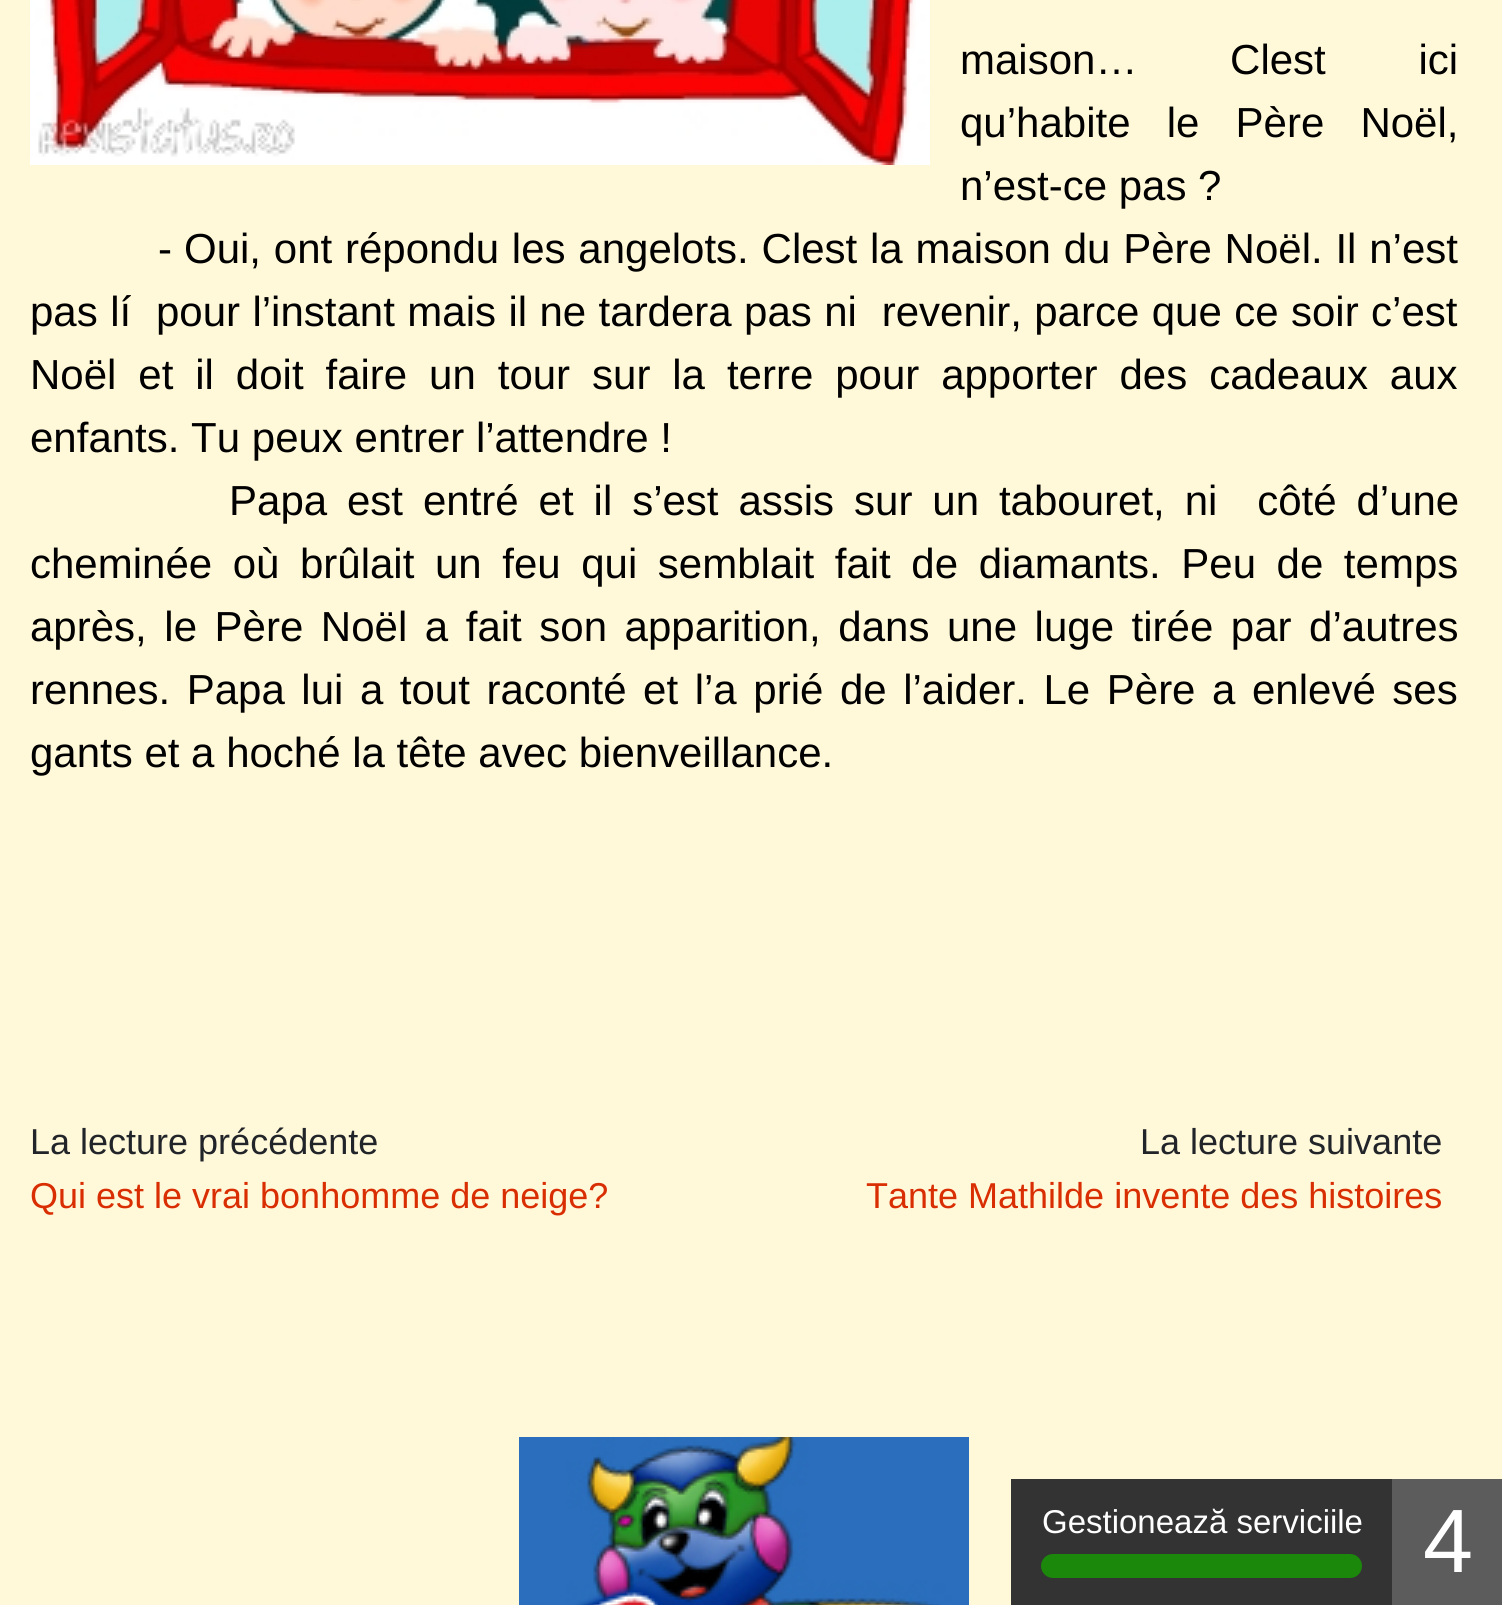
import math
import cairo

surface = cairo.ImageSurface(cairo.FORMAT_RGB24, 1502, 1605)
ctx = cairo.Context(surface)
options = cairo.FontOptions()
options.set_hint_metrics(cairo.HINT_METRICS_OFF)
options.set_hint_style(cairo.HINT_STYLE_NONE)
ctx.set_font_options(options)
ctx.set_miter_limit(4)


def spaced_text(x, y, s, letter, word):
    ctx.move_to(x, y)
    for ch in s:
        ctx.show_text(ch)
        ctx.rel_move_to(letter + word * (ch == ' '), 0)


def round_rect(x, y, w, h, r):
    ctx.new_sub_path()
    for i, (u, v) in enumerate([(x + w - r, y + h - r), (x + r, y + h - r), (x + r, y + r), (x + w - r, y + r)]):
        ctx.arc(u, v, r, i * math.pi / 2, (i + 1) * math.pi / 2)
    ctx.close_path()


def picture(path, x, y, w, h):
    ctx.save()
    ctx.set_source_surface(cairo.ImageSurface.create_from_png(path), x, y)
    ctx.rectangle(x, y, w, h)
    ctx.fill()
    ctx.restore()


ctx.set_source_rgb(1, 0.969, 0.851)
ctx.paint()
picture("img1.png", 30, 0, 900, 165)
ctx.select_font_face("Liberation Sans")
ctx.set_font_size(42)
ctx.set_source_rgb(0, 0, 0)
spaced_text(960, 74, "maison… Clest ici", 0, 81)
spaced_text(960, 137, "qu’habite le Père Noël,", 0, 24.5)
ctx.move_to(960, 200)
ctx.show_text("n’est-ce pas ?")
ctx.move_to(158, 263)
ctx.show_text("-")
spaced_text(184, 263, "Oui, ont répondu les angelots. Clest la maison du Père Noël. Il n’est", 0, 1.1)
spaced_text(30, 326, "pas lí  pour l’instant mais il ne tardera pas ni  revenir, parce que ce soir c’est", 0, 0.75)
spaced_text(30, 389, "Noël et il doit faire un tour sur la terre pour apporter des cadeaux aux", 0, 10.25)
ctx.move_to(30, 452)
ctx.show_text("enfants. Tu peux entrer l’attendre !")
spaced_text(229, 515, "Papa est entré et il s’est assis sur un tabouret, ni  côté d’une", 0, 8.25)
spaced_text(30, 578, "cheminée où brûlait un feu qui semblait fait de diamants. Peu de temps", 0, 8.9)
spaced_text(30, 641, "après, le Père Noël a fait son apparition, dans une luge tirée par d’autres", 0, 5.9)
spaced_text(30, 704, "rennes. Papa lui a tout raconté et l’a prié de l’aider. Le Père a enlevé ses", 0, 4.9)
ctx.move_to(30, 767)
ctx.show_text("gants et a hoché la tête avec bienveillance.")
ctx.set_font_size(36)
ctx.set_source_rgb(0.129, 0.145, 0.161)
ctx.move_to(30, 1154)
ctx.show_text("La lecture précédente")
ctx.set_source_rgb(0.851, 0.176, 0.008)
ctx.move_to(30, 1208)
ctx.show_text("Qui est le vrai bonhomme de neige?")
ctx.set_source_rgb(0.129, 0.145, 0.161)
ctx.move_to(1140, 1154)
ctx.show_text("La lecture suivante")
ctx.set_source_rgb(0.851, 0.176, 0.008)
ctx.move_to(866, 1208)
ctx.show_text("Tante Mathilde invente des histoires")
picture("img2.png", 519, 1437, 450, 168)
ctx.set_source_rgb(0.2, 0.2, 0.2)
ctx.rectangle(1011, 1479, 381, 126)
ctx.fill()
ctx.set_font_size(33)
ctx.set_source_rgb(1, 1, 1)
ctx.move_to(1042, 1533)
ctx.show_text("Gestionează serviciile")
ctx.set_source_rgb(0.106, 0.529, 0.043)
round_rect(1041, 1554, 321, 24, 12)
ctx.fill()
ctx.set_source_rgb(0.361, 0.361, 0.361)
ctx.rectangle(1392, 1479, 110, 126)
ctx.fill()
ctx.set_font_size(90)
ctx.set_source_rgb(1, 1, 1)
ctx.move_to(1423, 1572)
ctx.show_text("4")
surface.write_to_png("page.png")
